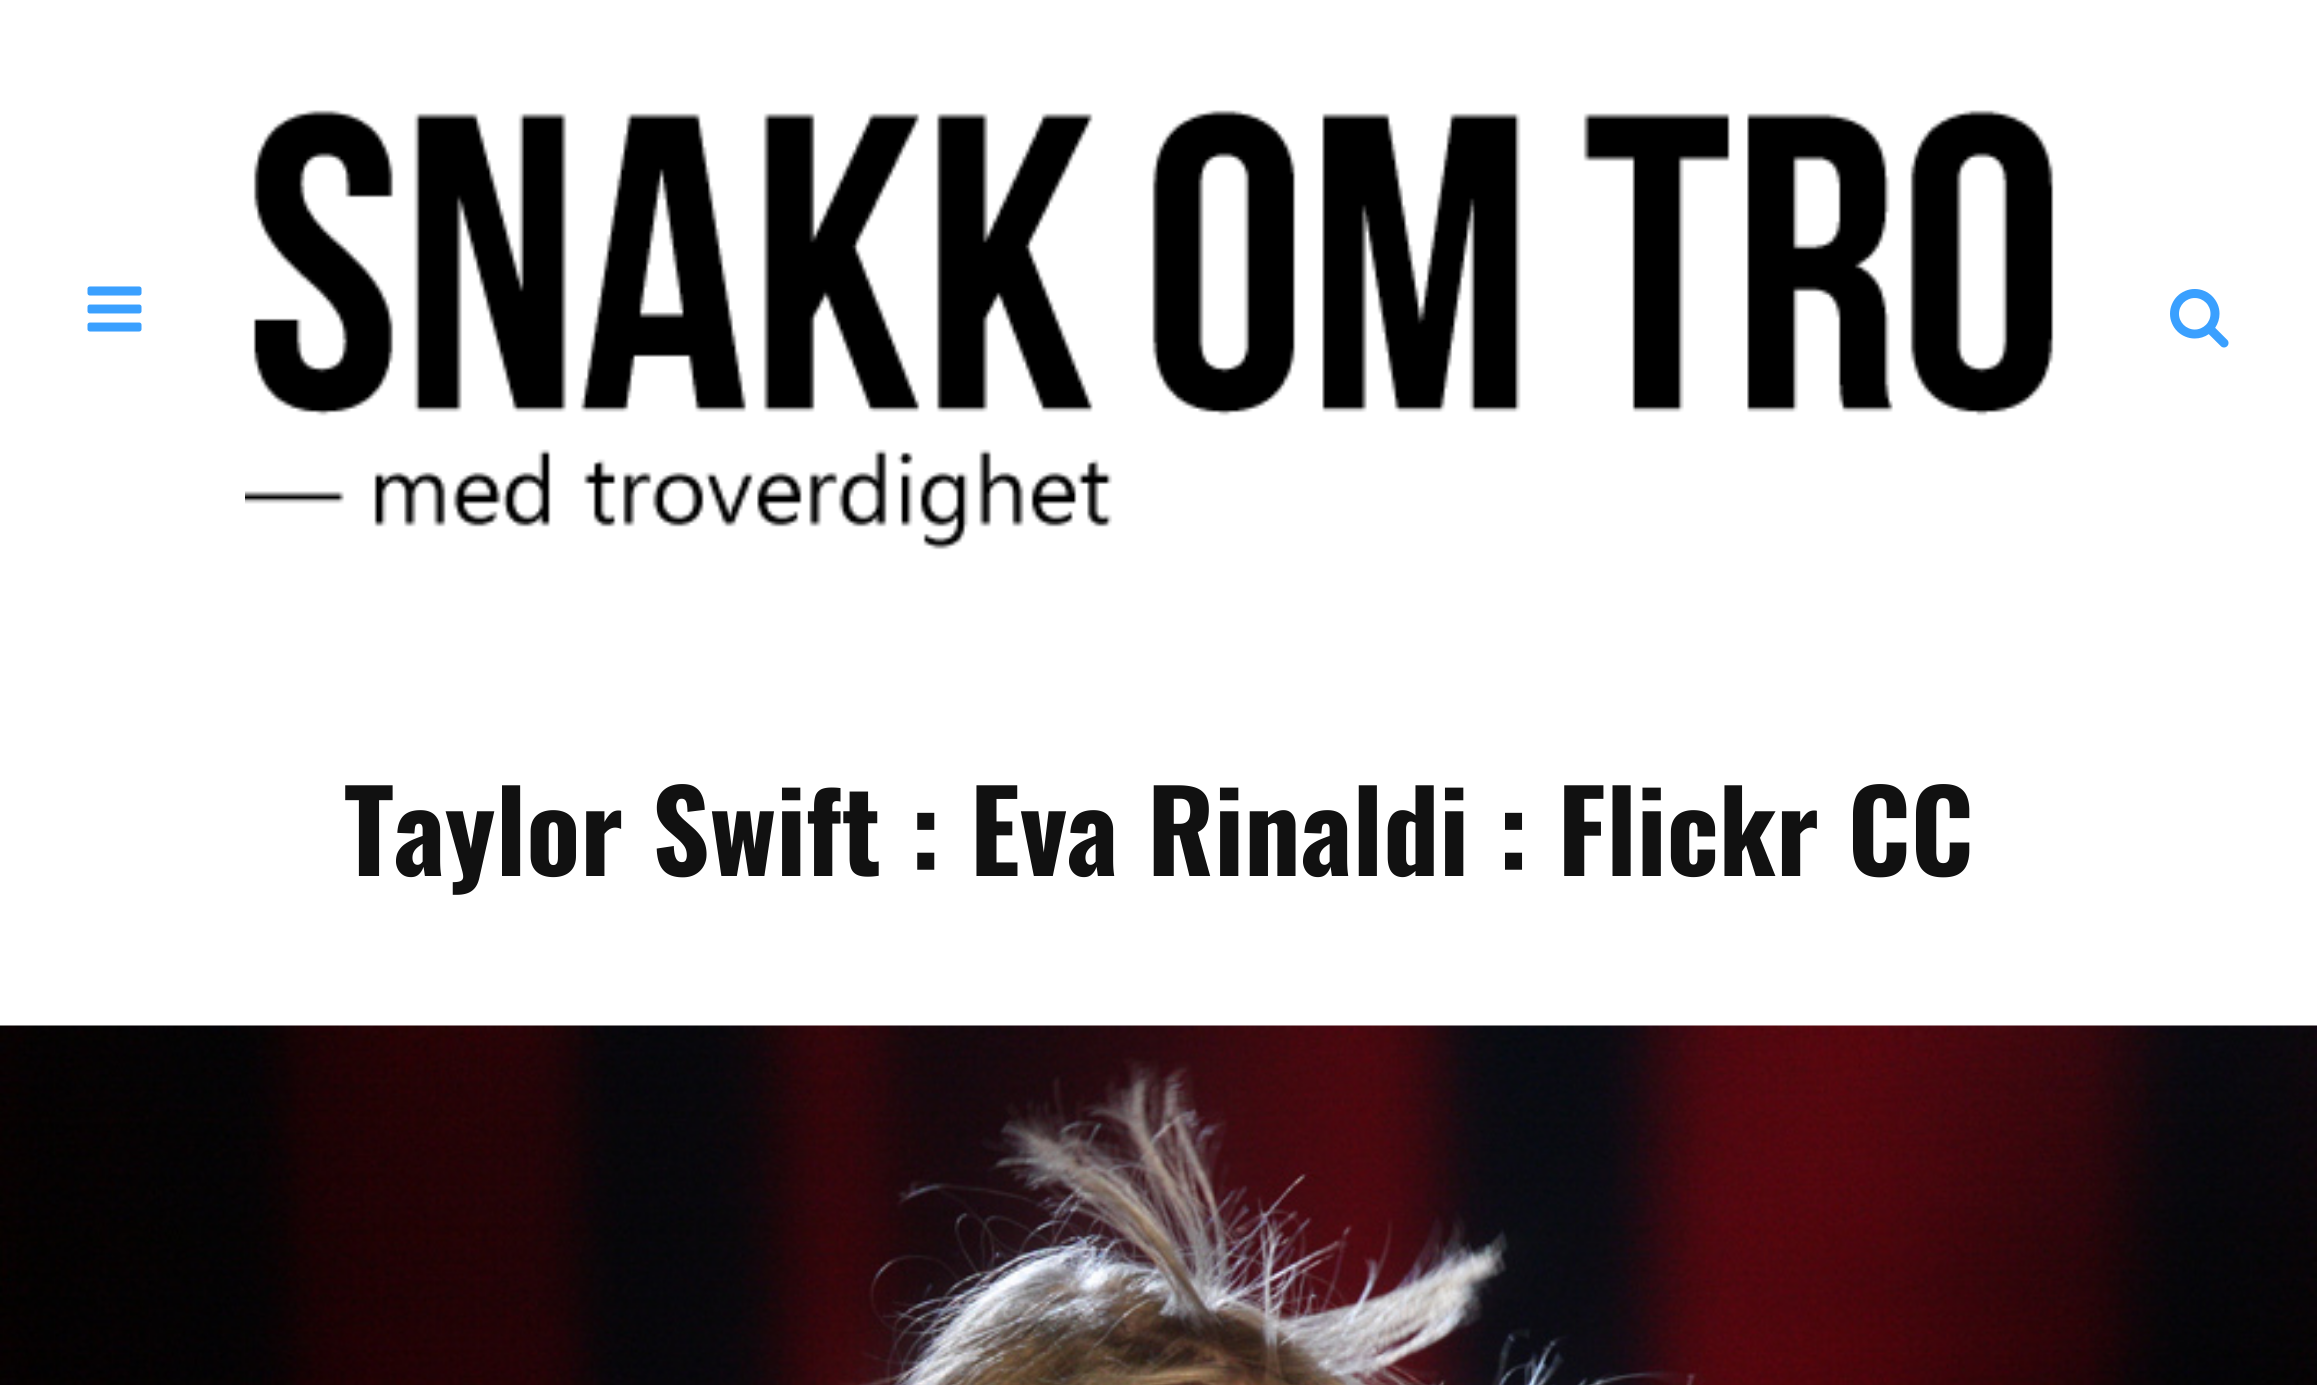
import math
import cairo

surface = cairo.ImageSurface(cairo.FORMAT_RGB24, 2317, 1385)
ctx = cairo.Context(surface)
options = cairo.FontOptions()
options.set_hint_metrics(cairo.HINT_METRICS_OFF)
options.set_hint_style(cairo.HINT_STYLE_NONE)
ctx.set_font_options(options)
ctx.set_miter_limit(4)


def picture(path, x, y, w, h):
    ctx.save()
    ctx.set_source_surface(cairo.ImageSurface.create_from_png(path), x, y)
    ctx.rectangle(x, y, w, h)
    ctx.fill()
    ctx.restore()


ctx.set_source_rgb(1, 1, 1)
ctx.paint()
picture("img1.png", 87, 286, 55, 46)
picture("img2.png", 245, 110, 1809, 440)
picture("img3.png", 2170, 289, 59, 59)
ctx.select_font_face("Oswald", cairo.FONT_SLANT_NORMAL, cairo.FONT_WEIGHT_BOLD)
ctx.set_font_size(112)
ctx.set_source_rgb(0.067, 0.067, 0.067)
ctx.move_to(344, 876)
ctx.show_text("Taylor Swift : Eva Rinaldi : Flickr CC")
picture("img4.png", 0, 1025, 2317, 360)
surface.write_to_png("page.png")
